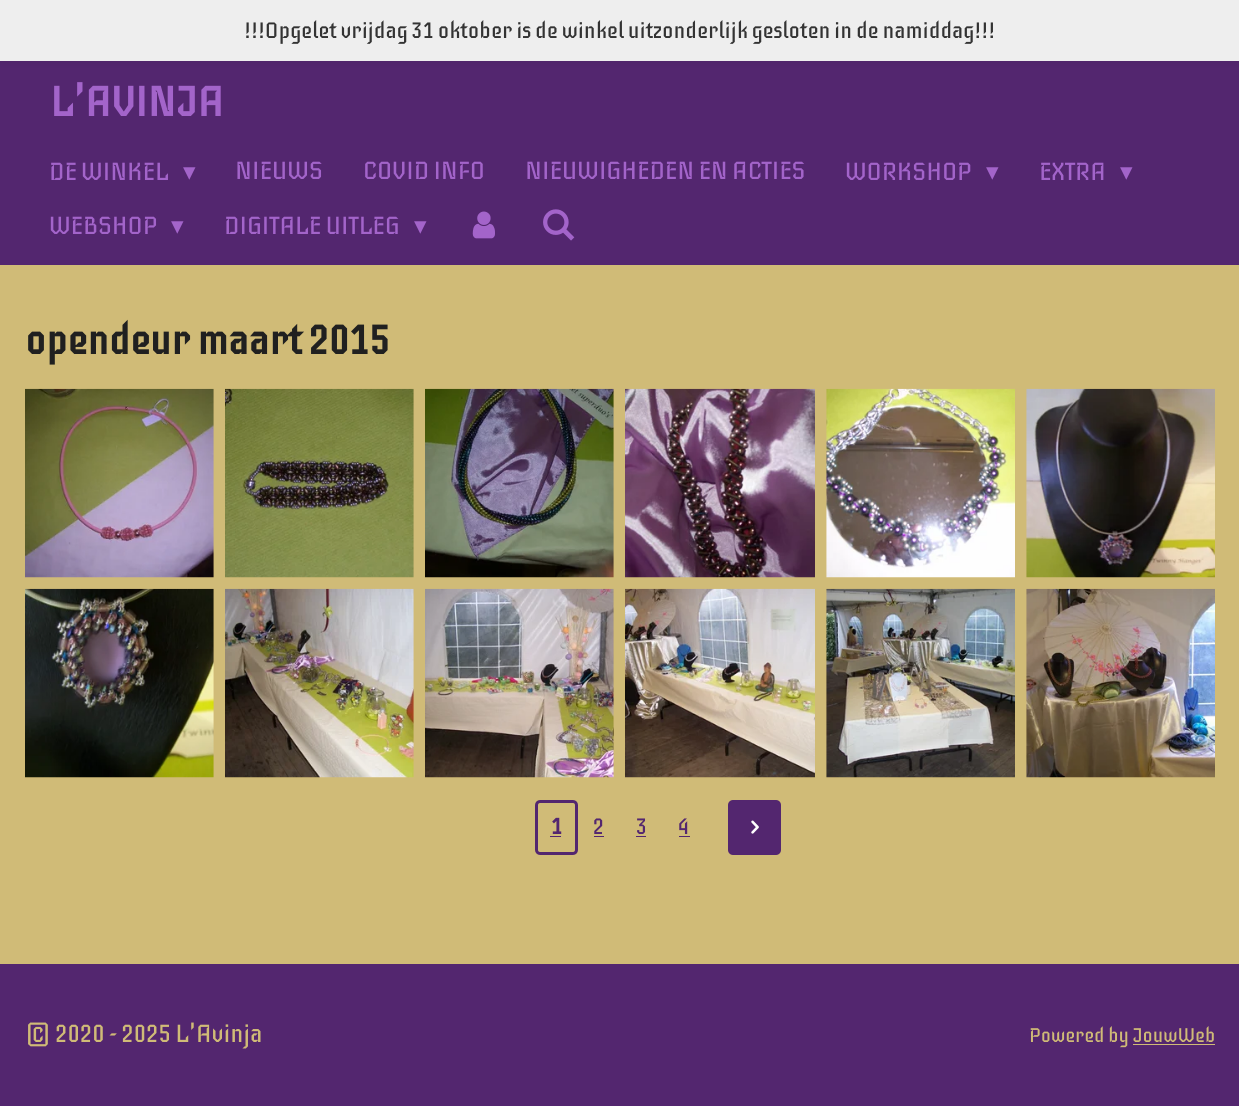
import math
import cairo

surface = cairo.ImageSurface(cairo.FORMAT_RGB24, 1239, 1106)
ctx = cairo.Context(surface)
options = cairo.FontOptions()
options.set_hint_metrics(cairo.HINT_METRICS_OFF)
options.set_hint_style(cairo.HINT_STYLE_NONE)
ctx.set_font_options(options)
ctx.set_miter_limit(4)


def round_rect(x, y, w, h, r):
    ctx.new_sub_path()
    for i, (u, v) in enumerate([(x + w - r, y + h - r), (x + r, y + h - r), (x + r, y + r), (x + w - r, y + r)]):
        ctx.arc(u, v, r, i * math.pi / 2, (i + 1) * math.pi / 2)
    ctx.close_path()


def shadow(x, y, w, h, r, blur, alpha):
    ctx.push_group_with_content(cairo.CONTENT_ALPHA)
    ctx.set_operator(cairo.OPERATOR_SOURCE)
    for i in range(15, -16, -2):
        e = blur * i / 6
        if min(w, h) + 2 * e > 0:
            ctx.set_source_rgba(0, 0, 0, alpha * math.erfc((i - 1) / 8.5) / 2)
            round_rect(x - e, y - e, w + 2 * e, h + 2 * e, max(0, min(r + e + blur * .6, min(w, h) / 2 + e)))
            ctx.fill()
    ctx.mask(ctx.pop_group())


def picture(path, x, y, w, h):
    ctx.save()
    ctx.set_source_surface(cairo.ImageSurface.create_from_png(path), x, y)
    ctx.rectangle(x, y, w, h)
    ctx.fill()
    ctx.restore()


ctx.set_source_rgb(0.816, 0.733, 0.467)
ctx.paint()
ctx.set_source_rgb(0.325, 0.149, 0.435)
ctx.rectangle(0, 61, 1239, 204)
ctx.fill()
ctx.set_source_rgb(0, 0, 0)
shadow(0, -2, 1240, 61, 0, 6, 0.1)
ctx.set_source_rgb(0.933, 0.933, 0.933)
ctx.rectangle(0, 0, 1239, 61)
ctx.fill()
ctx.select_font_face("Iceberg")
ctx.set_font_size(22.5)
ctx.set_source_rgb(0.2, 0.2, 0.2)
ctx.move_to(244, 38)
ctx.show_text("!!!Opgelet vrijdag 31 oktober is de winkel uitzonderlijk gesloten in de namiddag!!!")
ctx.select_font_face("Iceberg", cairo.FONT_SLANT_NORMAL, cairo.FONT_WEIGHT_BOLD)
ctx.set_font_size(42)
ctx.set_source_rgb(0.639, 0.392, 0.792)
ctx.move_to(50, 116)
ctx.show_text("L'AVINJA")
ctx.select_font_face("Iceberg")
ctx.set_font_size(25)
ctx.move_to(49, 180)
ctx.show_text("DE WINKEL")
ctx.select_font_face("DejaVu Sans")
ctx.move_to(183, 180)
ctx.show_text("▾")
ctx.select_font_face("Iceberg")
ctx.move_to(235, 179)
ctx.show_text("NIEUWS")
ctx.move_to(363, 179)
ctx.show_text("COVID INFO")
ctx.move_to(525, 179)
ctx.show_text("NIEUWIGHEDEN EN ACTIES")
ctx.move_to(845, 180)
ctx.show_text("WORKSHOP")
ctx.select_font_face("DejaVu Sans")
ctx.move_to(986, 180)
ctx.show_text("▾")
ctx.select_font_face("Iceberg")
ctx.move_to(1039, 180)
ctx.show_text("EXTRA")
ctx.select_font_face("DejaVu Sans")
ctx.move_to(1120, 180)
ctx.show_text("▾")
ctx.select_font_face("Iceberg")
ctx.move_to(49, 234)
ctx.show_text("WEBSHOP")
ctx.select_font_face("DejaVu Sans")
ctx.move_to(171, 234)
ctx.show_text("▾")
ctx.select_font_face("Iceberg")
ctx.move_to(224, 234)
ctx.show_text("DIGITALE UITLEG")
ctx.select_font_face("DejaVu Sans")
ctx.move_to(414, 234)
ctx.show_text("▾")
picture("img1.png", 472, 211, 23, 28)
picture("img2.png", 543, 209, 32, 32)
ctx.select_font_face("Iceberg", cairo.FONT_SLANT_NORMAL, cairo.FONT_WEIGHT_BOLD)
ctx.set_font_size(40.9)
ctx.set_source_rgb(0.125, 0.125, 0.125)
ctx.move_to(25, 354)
ctx.show_text("opendeur maart 2015")
picture("img3.png", 25, 388, 189, 190)
picture("img4.png", 225, 388, 189, 190)
picture("img5.png", 425, 388, 189, 190)
picture("img6.png", 625, 388, 190, 190)
picture("img7.png", 826, 388, 189, 190)
picture("img8.png", 1026, 388, 189, 190)
picture("img9.png", 25, 588, 189, 190)
picture("img10.png", 225, 588, 189, 190)
picture("img11.png", 425, 588, 189, 190)
picture("img12.png", 625, 588, 190, 190)
picture("img13.png", 826, 588, 189, 190)
picture("img14.png", 1026, 588, 189, 190)
round_rect(536.5, 801.5, 40, 52, 3.5)
ctx.set_source_rgb(0.325, 0.149, 0.435)
ctx.set_line_width(3)
ctx.stroke()
ctx.set_font_size(22.5)
ctx.move_to(551, 834)
ctx.show_text("1")
ctx.rectangle(550, 836, 11, 1)
ctx.fill()
ctx.select_font_face("Iceberg")
ctx.move_to(593, 834)
ctx.show_text("2")
ctx.rectangle(594, 836, 10, 1)
ctx.fill()
ctx.move_to(636, 834)
ctx.show_text("3")
ctx.rectangle(636, 836, 10, 1)
ctx.fill()
ctx.move_to(678, 834)
ctx.show_text("4")
ctx.rectangle(679, 836, 11, 1)
ctx.fill()
round_rect(728, 800, 53, 55, 5)
ctx.fill()
picture("img15.png", 751, 820, 8, 14)
ctx.rectangle(0, 964, 1239, 142)
ctx.fill()
ctx.set_font_size(25)
ctx.set_source_rgb(0.816, 0.733, 0.467)
ctx.move_to(25, 1042)
ctx.show_text("© 2020 - 2025 L'Avinja")
ctx.set_font_size(20)
ctx.move_to(1029, 1042)
ctx.show_text("Powered by JouwWeb")
ctx.rectangle(1133, 1044, 82, 1)
ctx.fill()
surface.write_to_png("page.png")
